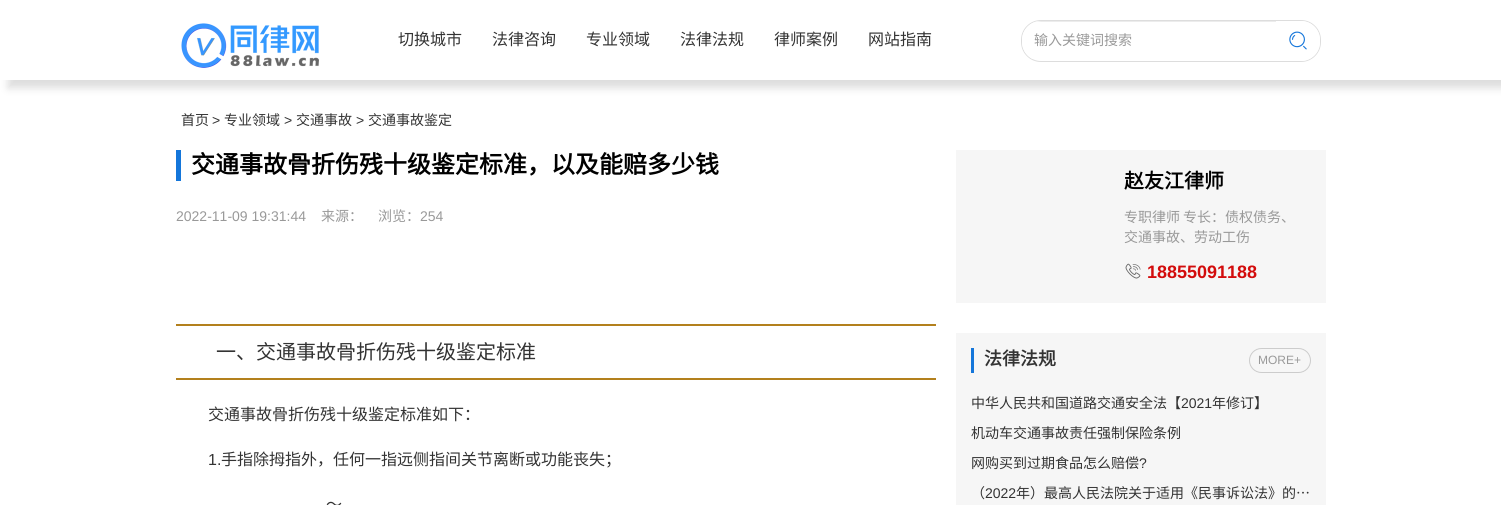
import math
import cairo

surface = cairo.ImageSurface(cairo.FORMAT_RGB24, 1501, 505)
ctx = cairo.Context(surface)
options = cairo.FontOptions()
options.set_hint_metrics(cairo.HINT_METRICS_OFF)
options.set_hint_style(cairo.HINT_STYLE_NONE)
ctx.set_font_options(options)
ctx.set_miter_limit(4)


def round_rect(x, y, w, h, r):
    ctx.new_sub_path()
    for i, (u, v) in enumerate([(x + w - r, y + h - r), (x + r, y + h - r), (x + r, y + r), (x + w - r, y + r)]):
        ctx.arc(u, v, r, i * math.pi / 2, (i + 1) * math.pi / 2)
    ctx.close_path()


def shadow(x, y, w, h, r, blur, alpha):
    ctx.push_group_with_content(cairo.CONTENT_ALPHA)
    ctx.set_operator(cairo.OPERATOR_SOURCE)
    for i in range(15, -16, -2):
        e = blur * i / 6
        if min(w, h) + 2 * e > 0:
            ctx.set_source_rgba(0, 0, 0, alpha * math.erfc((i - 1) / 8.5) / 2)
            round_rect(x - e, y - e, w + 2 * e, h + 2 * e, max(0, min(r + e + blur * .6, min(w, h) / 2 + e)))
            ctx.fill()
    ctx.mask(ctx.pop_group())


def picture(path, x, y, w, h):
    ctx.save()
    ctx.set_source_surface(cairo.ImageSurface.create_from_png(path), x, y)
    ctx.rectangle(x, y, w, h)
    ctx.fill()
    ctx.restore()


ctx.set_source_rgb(1, 1, 1)
ctx.paint()
ctx.save()
ctx.rectangle(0, 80, 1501, 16)
ctx.clip()
ctx.set_source_rgb(0.867, 0.867, 0.867)
shadow(8, 8, 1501, 80, 0, 4, 1)
ctx.restore()
picture("img1.png", 181, 23, 138, 45)
ctx.select_font_face("Noto Sans CJK SC")
ctx.set_font_size(16)
ctx.set_source_rgb(0.2, 0.2, 0.2)
ctx.move_to(398, 45)
ctx.show_text("切换城市")
ctx.move_to(492, 45)
ctx.show_text("法律咨询")
ctx.move_to(586, 45)
ctx.show_text("专业领域")
ctx.move_to(680, 45)
ctx.show_text("法律法规")
ctx.move_to(774, 45)
ctx.show_text("律师案例")
ctx.move_to(868, 45)
ctx.show_text("网站指南")
round_rect(1021.5, 20.5, 299, 41, 19.5)
ctx.set_source_rgb(0.867, 0.867, 0.867)
ctx.set_line_width(1)
ctx.stroke()
ctx.save()
round_rect(1022, 21, 298, 40, 19)
ctx.clip()
ctx.set_source_rgb(1, 1, 1)
ctx.new_path()
ctx.move_to(1041, 21)
ctx.line_to(1277, 21)
ctx.line_to(1277, 59)
ctx.line_to(1026, 59)
ctx.curve_to(1024, 59, 1022, 57, 1022, 55)
ctx.line_to(1022, 40)
ctx.curve_to(1022, 29.5, 1030.5, 21, 1041, 21)
ctx.close_path()
ctx.fill()
ctx.restore()
ctx.set_source_rgb(0.925, 0.925, 0.925)
ctx.new_path()
ctx.move_to(1041, 21)
ctx.line_to(1035, 22)
ctx.line_to(1277, 22)
ctx.line_to(1277, 21)
ctx.close_path()
ctx.fill()
ctx.set_font_size(14)
ctx.set_source_rgb(0.6, 0.6, 0.6)
ctx.move_to(1034, 45)
ctx.show_text("输入关键词搜索")
ctx.set_source_rgb(1, 1, 1)
ctx.new_path()
ctx.move_to(1276, 21)
ctx.line_to(1301, 21)
ctx.curve_to(1311.5, 21, 1320, 29.5, 1320, 40)
ctx.line_to(1320, 42)
ctx.curve_to(1320, 52.5, 1311.5, 61, 1301, 61)
ctx.line_to(1276, 61)
ctx.close_path()
ctx.fill()
picture("img2.png", 1289, 31, 18, 19)
ctx.set_source_rgb(0.2, 0.2, 0.2)
ctx.move_to(181, 125)
ctx.show_text("首页")
ctx.select_font_face("Liberation Sans")
ctx.move_to(212, 125)
ctx.show_text(">")
ctx.select_font_face("Noto Sans CJK SC")
ctx.move_to(224, 125)
ctx.show_text("专业领域")
ctx.select_font_face("Liberation Sans")
ctx.move_to(284, 125)
ctx.show_text(">")
ctx.select_font_face("Noto Sans CJK SC")
ctx.move_to(296, 125)
ctx.show_text("交通事故")
ctx.select_font_face("Liberation Sans")
ctx.move_to(356, 125)
ctx.show_text(">")
ctx.select_font_face("Noto Sans CJK SC")
ctx.move_to(368, 125)
ctx.show_text("交通事故鉴定")
ctx.set_source_rgb(0.082, 0.463, 0.855)
ctx.rectangle(176, 150, 5, 31)
ctx.fill()
ctx.select_font_face("Noto Sans CJK SC", cairo.FONT_SLANT_NORMAL, cairo.FONT_WEIGHT_BOLD)
ctx.set_font_size(24)
ctx.set_source_rgb(0, 0, 0)
ctx.move_to(191, 173)
ctx.show_text("交通事故骨折伤残十级鉴定标准，以及能赔多少钱")
ctx.select_font_face("Liberation Sans")
ctx.set_font_size(14)
ctx.set_source_rgb(0.6, 0.6, 0.6)
ctx.move_to(176, 221)
ctx.show_text("2022-11-09 19:31:44")
ctx.select_font_face("Noto Sans CJK SC")
ctx.move_to(321, 221)
ctx.show_text("来源：")
ctx.move_to(378, 221)
ctx.show_text("浏览：")
ctx.select_font_face("Liberation Sans")
ctx.move_to(420, 221)
ctx.show_text("254")
ctx.set_source_rgb(0.702, 0.502, 0.114)
ctx.rectangle(176, 324, 760, 2)
ctx.fill()
ctx.rectangle(176, 378, 760, 2)
ctx.fill()
ctx.select_font_face("Noto Sans CJK SC")
ctx.set_font_size(20)
ctx.set_source_rgb(0.2, 0.2, 0.2)
ctx.move_to(216, 359)
ctx.show_text("一、交通事故骨折伤残十级鉴定标准")
ctx.set_font_size(16)
ctx.move_to(208, 420)
ctx.show_text("交通事故骨折伤残十级鉴定标准如下：")
ctx.select_font_face("Liberation Sans")
ctx.move_to(208, 465)
ctx.show_text("1.")
ctx.select_font_face("Noto Sans CJK SC")
ctx.move_to(221, 465)
ctx.show_text("手指除拇指外，任何一指远侧指间关节离断或功能丧失；")
ctx.move_to(326, 510)
ctx.show_text("～")
ctx.set_source_rgb(0.961, 0.961, 0.961)
ctx.rectangle(956, 150, 370, 153)
ctx.fill()
ctx.select_font_face("Noto Sans CJK SC", cairo.FONT_SLANT_NORMAL, cairo.FONT_WEIGHT_BOLD)
ctx.set_font_size(20)
ctx.set_source_rgb(0, 0, 0)
ctx.move_to(1124, 188)
ctx.show_text("赵友江律师")
ctx.select_font_face("Noto Sans CJK SC")
ctx.set_font_size(14)
ctx.set_source_rgb(0.6, 0.6, 0.6)
ctx.move_to(1124, 222)
ctx.show_text("专职律师")
ctx.move_to(1183, 222)
ctx.show_text("专长：债权债务、")
ctx.move_to(1124, 242)
ctx.show_text("交通事故、劳动工伤")
picture("img3.png", 1125, 263, 16, 16)
ctx.select_font_face("Liberation Sans", cairo.FONT_SLANT_NORMAL, cairo.FONT_WEIGHT_BOLD)
ctx.set_font_size(18)
ctx.set_source_rgb(0.827, 0.047, 0.047)
ctx.move_to(1147, 278)
ctx.show_text("18855091188")
ctx.set_source_rgb(0.961, 0.961, 0.961)
ctx.rectangle(956, 333, 370, 172)
ctx.fill()
ctx.set_source_rgb(0.082, 0.463, 0.855)
ctx.rectangle(971, 348, 3, 25)
ctx.fill()
ctx.select_font_face("Noto Sans CJK SC", cairo.FONT_SLANT_NORMAL, cairo.FONT_WEIGHT_BOLD)
ctx.set_source_rgb(0.2, 0.2, 0.2)
ctx.move_to(984, 365)
ctx.show_text("法律法规")
round_rect(1249.5, 348.5, 61, 24, 12)
ctx.set_source_rgb(0.8, 0.8, 0.8)
ctx.stroke()
ctx.select_font_face("Liberation Sans")
ctx.set_font_size(12)
ctx.set_source_rgb(0.6, 0.6, 0.6)
ctx.move_to(1258, 364)
ctx.show_text("MORE+")
ctx.select_font_face("Noto Sans CJK SC")
ctx.set_font_size(14)
ctx.set_source_rgb(0.2, 0.2, 0.2)
ctx.move_to(971, 408)
ctx.show_text("中华人民共和国道路交通安全法【")
ctx.select_font_face("Liberation Sans")
ctx.move_to(1181, 408)
ctx.show_text("2021")
ctx.select_font_face("Noto Sans CJK SC")
ctx.move_to(1212, 408)
ctx.show_text("年修订】")
ctx.move_to(971, 438)
ctx.show_text("机动车交通事故责任强制保险条例")
ctx.move_to(971, 468)
ctx.show_text("网购买到过期食品怎么赔偿")
ctx.select_font_face("Liberation Sans")
ctx.move_to(1139, 468)
ctx.show_text("?")
ctx.select_font_face("Noto Sans CJK SC")
ctx.move_to(971, 498)
ctx.show_text("（")
ctx.select_font_face("Liberation Sans")
ctx.move_to(985, 498)
ctx.show_text("2022")
ctx.select_font_face("Noto Sans CJK SC")
ctx.move_to(1016, 498)
ctx.show_text("年）最高人民法院关于适用《民事诉讼法》的…")
surface.write_to_png("page.png")
